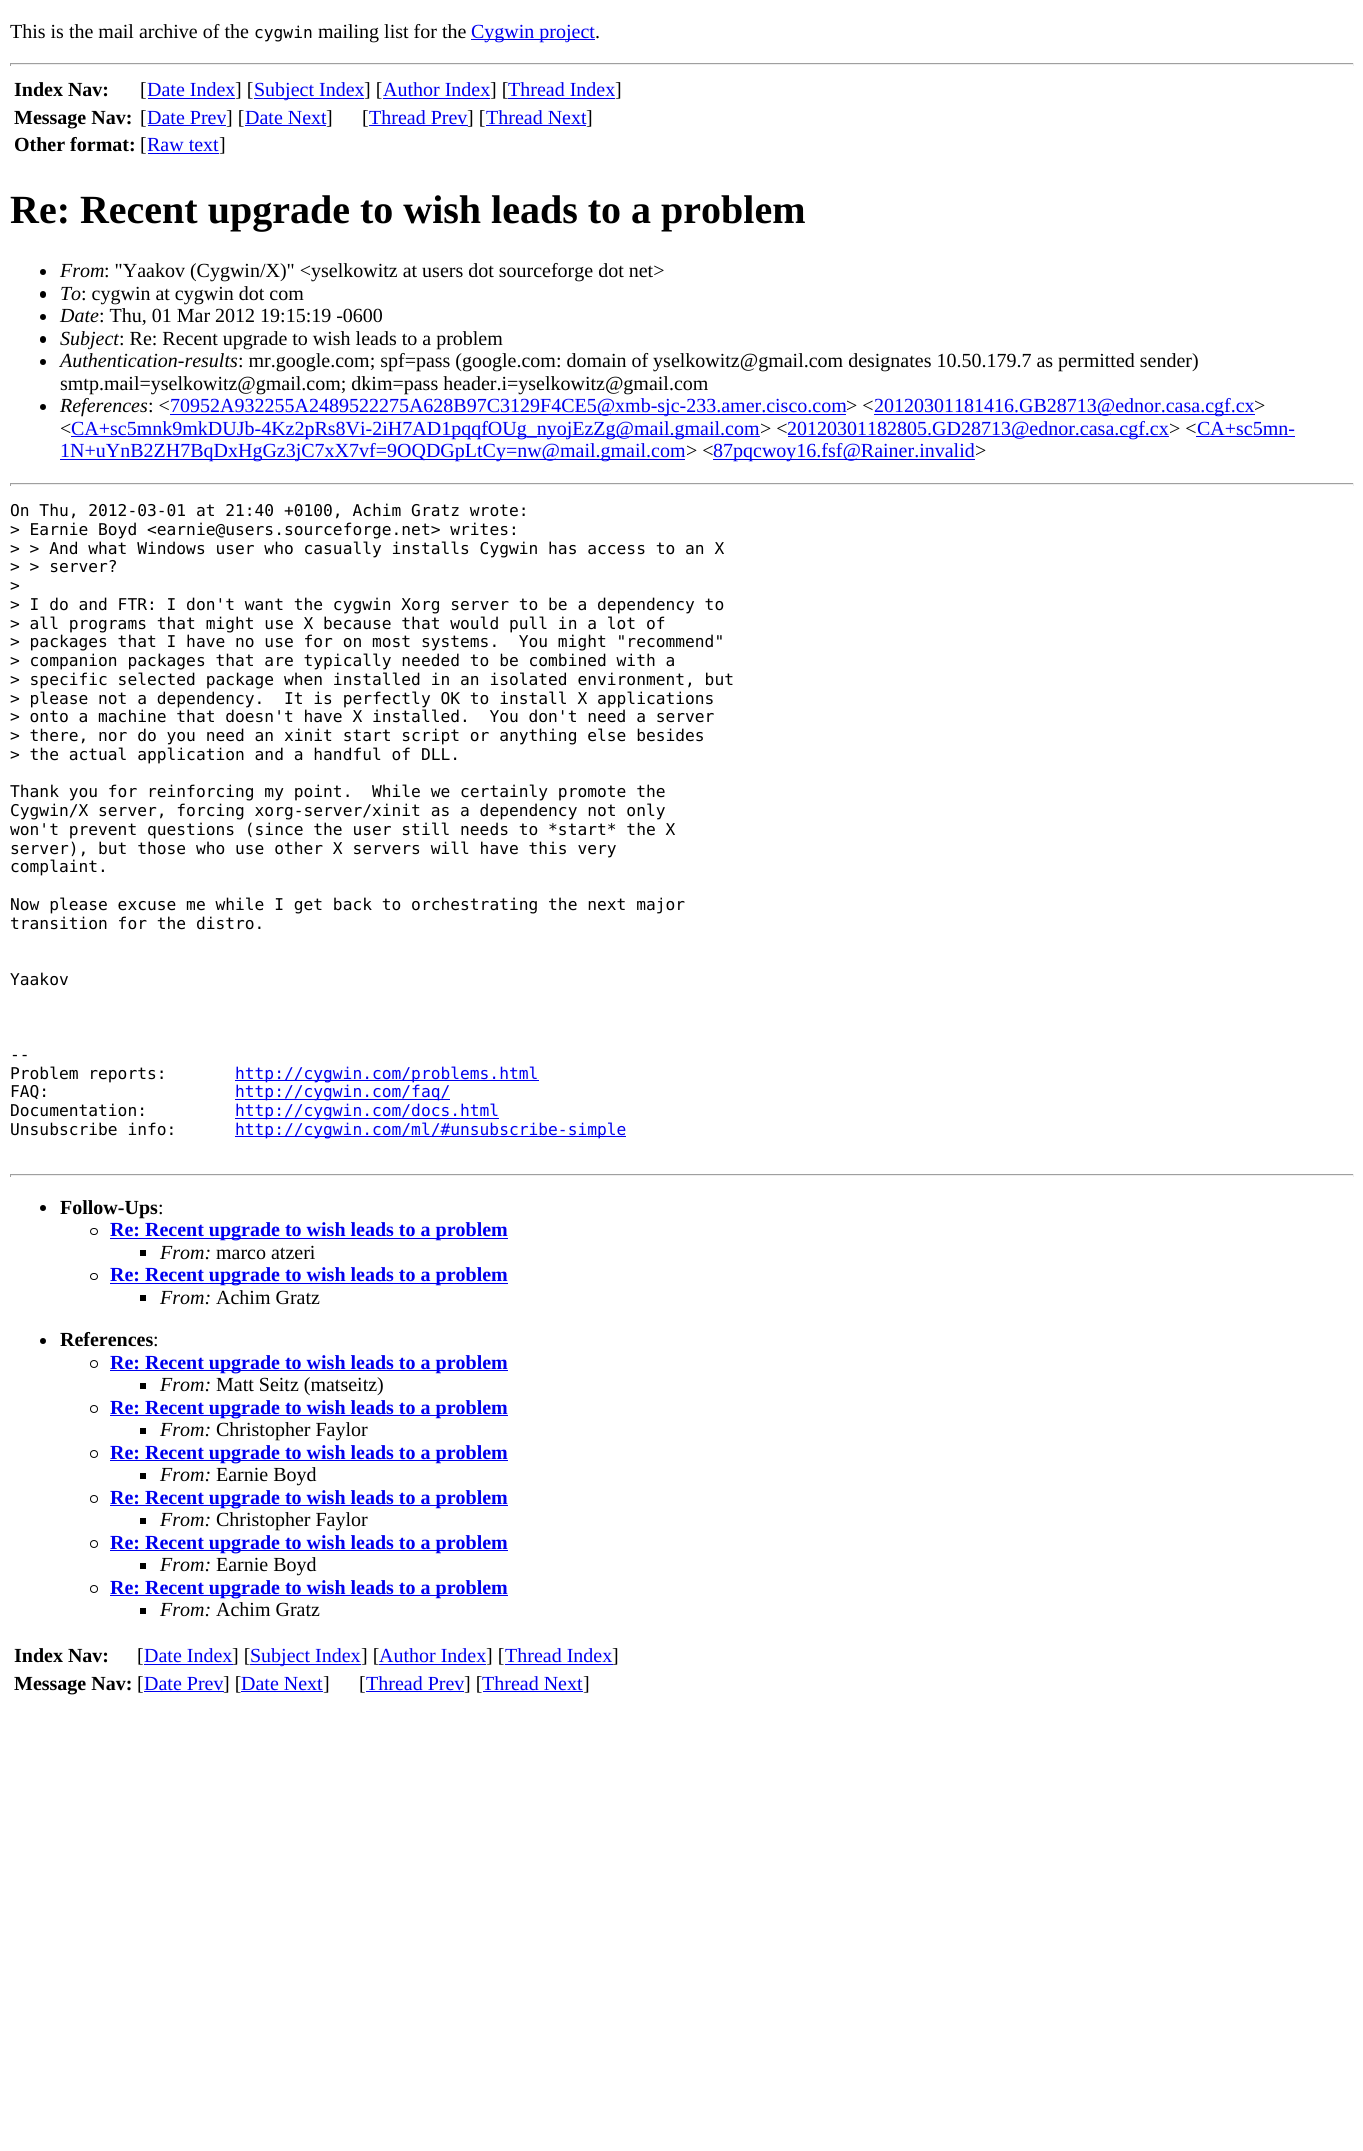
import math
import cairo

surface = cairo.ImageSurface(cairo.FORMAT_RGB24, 1363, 2151)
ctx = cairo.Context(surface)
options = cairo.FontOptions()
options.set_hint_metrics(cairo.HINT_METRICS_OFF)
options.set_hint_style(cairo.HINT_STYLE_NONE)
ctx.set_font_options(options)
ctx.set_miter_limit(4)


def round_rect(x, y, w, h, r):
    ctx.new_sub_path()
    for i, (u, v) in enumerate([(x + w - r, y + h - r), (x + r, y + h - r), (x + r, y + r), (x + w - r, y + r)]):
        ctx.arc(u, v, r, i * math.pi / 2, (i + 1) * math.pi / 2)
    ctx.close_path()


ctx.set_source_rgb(1, 1, 1)
ctx.paint()
ctx.select_font_face("Liberation Serif")
ctx.set_font_size(20)
ctx.set_source_rgb(0, 0, 0)
ctx.move_to(10, 38)
ctx.show_text("This is the mail archive of the")
ctx.select_font_face("DejaVu Sans Mono")
ctx.set_font_size(16.25)
ctx.move_to(254, 38)
ctx.show_text("cygwin")
ctx.select_font_face("Liberation Serif")
ctx.set_font_size(20)
ctx.move_to(318, 38)
ctx.show_text("mailing list for the")
ctx.set_source_rgb(0, 0, 0.933)
ctx.rectangle(471, 39, 124, 1)
ctx.fill()
ctx.move_to(471, 38)
ctx.show_text("Cygwin project")
ctx.set_source_rgb(0, 0, 0)
ctx.move_to(595, 38)
ctx.show_text(".")
ctx.set_source_rgb(0.624, 0.624, 0.624)
ctx.rectangle(10, 63, 1344, 1)
ctx.fill()
ctx.set_source_rgb(0.933, 0.933, 0.933)
ctx.rectangle(1353, 63, 1, 3)
ctx.fill()
ctx.rectangle(10, 64, 1344, 1)
ctx.fill()
ctx.set_source_rgb(0.624, 0.624, 0.624)
ctx.rectangle(10, 63, 1, 3)
ctx.fill()
ctx.select_font_face("Liberation Serif", cairo.FONT_SLANT_NORMAL, cairo.FONT_WEIGHT_BOLD)
ctx.set_source_rgb(0, 0, 0)
ctx.move_to(14, 96)
ctx.show_text("Index Nav:")
ctx.select_font_face("Liberation Serif")
ctx.move_to(140, 96)
ctx.show_text("[")
ctx.set_source_rgb(0, 0, 0.933)
ctx.move_to(147, 96)
ctx.show_text("Date Index")
ctx.rectangle(148, 98, 87, 1)
ctx.fill()
ctx.set_source_rgb(0, 0, 0)
ctx.move_to(235, 96)
ctx.show_text("] [")
ctx.set_source_rgb(0, 0, 0.933)
ctx.rectangle(254, 98, 110, 1)
ctx.fill()
ctx.move_to(254, 96)
ctx.show_text("Subject Index")
ctx.set_source_rgb(0, 0, 0)
ctx.move_to(364, 96)
ctx.show_text("] [")
ctx.set_source_rgb(0, 0, 0.933)
ctx.move_to(383, 96)
ctx.show_text("Author Index")
ctx.rectangle(383, 98, 107, 1)
ctx.fill()
ctx.set_source_rgb(0, 0, 0)
ctx.move_to(490, 96)
ctx.show_text("] [")
ctx.set_source_rgb(0, 0, 0.933)
ctx.move_to(508, 96)
ctx.show_text("Thread Index")
ctx.rectangle(508, 98, 107, 1)
ctx.fill()
ctx.set_source_rgb(0, 0, 0)
ctx.move_to(615, 96)
ctx.show_text("]")
ctx.select_font_face("Liberation Serif", cairo.FONT_SLANT_NORMAL, cairo.FONT_WEIGHT_BOLD)
ctx.move_to(14, 124)
ctx.show_text("Message Nav:")
ctx.select_font_face("Liberation Serif")
ctx.move_to(140, 124)
ctx.show_text("[")
ctx.set_source_rgb(0, 0, 0.933)
ctx.move_to(147, 124)
ctx.show_text("Date Prev")
ctx.rectangle(148, 125, 78, 1)
ctx.fill()
ctx.set_source_rgb(0, 0, 0)
ctx.move_to(226, 124)
ctx.show_text("] [")
ctx.set_source_rgb(0, 0, 0.933)
ctx.move_to(245, 124)
ctx.show_text("Date Next")
ctx.rectangle(245, 125, 81, 1)
ctx.fill()
ctx.set_source_rgb(0, 0, 0)
ctx.move_to(326, 124)
ctx.show_text("]")
ctx.move_to(362, 124)
ctx.show_text("[")
ctx.set_source_rgb(0, 0, 0.933)
ctx.move_to(369, 124)
ctx.show_text("Thread Prev")
ctx.rectangle(369, 125, 99, 1)
ctx.fill()
ctx.set_source_rgb(0, 0, 0)
ctx.move_to(467, 124)
ctx.show_text("] [")
ctx.set_source_rgb(0, 0, 0.933)
ctx.move_to(486, 124)
ctx.show_text("Thread Next")
ctx.rectangle(486, 125, 100, 1)
ctx.fill()
ctx.set_source_rgb(0, 0, 0)
ctx.move_to(586, 124)
ctx.show_text("]")
ctx.select_font_face("Liberation Serif", cairo.FONT_SLANT_NORMAL, cairo.FONT_WEIGHT_BOLD)
ctx.move_to(14, 151)
ctx.show_text("Other format:")
ctx.select_font_face("Liberation Serif")
ctx.move_to(140, 151)
ctx.show_text("[")
ctx.set_source_rgb(0, 0, 0.933)
ctx.move_to(147, 151)
ctx.show_text("Raw text")
ctx.rectangle(148, 153, 71, 1)
ctx.fill()
ctx.set_source_rgb(0, 0, 0)
ctx.move_to(219, 151)
ctx.show_text("]")
ctx.select_font_face("Liberation Serif", cairo.FONT_SLANT_NORMAL, cairo.FONT_WEIGHT_BOLD)
ctx.set_font_size(40)
ctx.move_to(10, 223)
ctx.show_text("Re: Recent upgrade to wish leads to a problem")
ctx.new_path()
ctx.arc(43, 272, 3, 0, 2 * math.pi)
ctx.fill()
ctx.select_font_face("Liberation Serif", cairo.FONT_SLANT_ITALIC)
ctx.set_font_size(20)
ctx.move_to(60, 277)
ctx.show_text("From")
ctx.select_font_face("Liberation Serif")
ctx.move_to(104, 277)
ctx.show_text(": \"Yaakov (Cygwin/X)\" <yselkowitz at users dot sourceforge dot net>")
round_rect(40, 291, 6, 7, 3)
ctx.fill()
ctx.select_font_face("Liberation Serif", cairo.FONT_SLANT_ITALIC)
ctx.move_to(60, 300)
ctx.show_text("To")
ctx.select_font_face("Liberation Serif")
ctx.move_to(81, 300)
ctx.show_text(": cygwin at cygwin dot com")
ctx.new_path()
ctx.arc(43, 317, 3, 0, 2 * math.pi)
ctx.fill()
ctx.select_font_face("Liberation Serif", cairo.FONT_SLANT_ITALIC)
ctx.move_to(60, 322)
ctx.show_text("Date")
ctx.select_font_face("Liberation Serif")
ctx.move_to(99, 322)
ctx.show_text(": Thu, 01 Mar 2012 19:15:19 -0600")
round_rect(40, 336, 6, 7, 3)
ctx.fill()
ctx.select_font_face("Liberation Serif", cairo.FONT_SLANT_ITALIC)
ctx.move_to(60, 345)
ctx.show_text("Subject")
ctx.select_font_face("Liberation Serif")
ctx.move_to(119, 345)
ctx.show_text(": Re: Recent upgrade to wish leads to a problem")
ctx.new_path()
ctx.arc(43, 362, 3, 0, 2 * math.pi)
ctx.fill()
ctx.select_font_face("Liberation Serif", cairo.FONT_SLANT_ITALIC)
ctx.move_to(60, 367)
ctx.show_text("Authentication-results")
ctx.select_font_face("Liberation Serif")
ctx.move_to(238, 367)
ctx.show_text(": mr.google.com; spf=pass (google.com: domain of yselkowitz@gmail.com designates 10.50.179.7 as permitted sender)")
ctx.move_to(60, 390)
ctx.show_text("smtp.mail=yselkowitz@gmail.com; dkim=pass header.i=yselkowitz@gmail.com")
ctx.new_path()
ctx.arc(43, 407, 3, 0, 2 * math.pi)
ctx.fill()
ctx.select_font_face("Liberation Serif", cairo.FONT_SLANT_ITALIC)
ctx.move_to(60, 412)
ctx.show_text("References")
ctx.select_font_face("Liberation Serif")
ctx.move_to(148, 412)
ctx.show_text(": <")
ctx.set_source_rgb(0, 0, 0.933)
ctx.rectangle(170, 414, 676, 1)
ctx.fill()
ctx.move_to(170, 412)
ctx.show_text("70952A932255A2489522275A628B97C3129F4CE5@xmb-sjc-233.amer.cisco.com")
ctx.set_source_rgb(0, 0, 0)
ctx.move_to(846, 412)
ctx.show_text("> <")
ctx.set_source_rgb(0, 0, 0.933)
ctx.rectangle(874, 414, 381, 1)
ctx.fill()
ctx.move_to(874, 412)
ctx.show_text("20120301181416.GB28713@ednor.casa.cgf.cx")
ctx.set_source_rgb(0, 0, 0)
ctx.move_to(1254, 412)
ctx.show_text(">")
ctx.move_to(60, 435)
ctx.show_text("<")
ctx.set_source_rgb(0, 0, 0.933)
ctx.rectangle(71, 436, 689, 1)
ctx.fill()
ctx.move_to(71, 435)
ctx.show_text("CA+sc5mnk9mkDUJb-4Kz2pRs8Vi-2iH7AD1pqqfOUg_nyojEzZg@mail.gmail.com")
ctx.set_source_rgb(0, 0, 0)
ctx.move_to(760, 435)
ctx.show_text("> <")
ctx.set_source_rgb(0, 0, 0.933)
ctx.rectangle(788, 436, 381, 1)
ctx.fill()
ctx.move_to(787, 435)
ctx.show_text("20120301182805.GD28713@ednor.casa.cgf.cx")
ctx.set_source_rgb(0, 0, 0)
ctx.move_to(1169, 435)
ctx.show_text("> <")
ctx.set_source_rgb(0, 0, 0.933)
ctx.move_to(1197, 435)
ctx.show_text("CA+sc5mn-")
ctx.rectangle(1196, 436, 99, 1)
ctx.fill()
ctx.rectangle(60, 459, 625, 1)
ctx.fill()
ctx.move_to(60, 457)
ctx.show_text("1N+uYnB2ZH7BqDxHgGz3jC7xX7vf=9OQDGpLtCy=nw@mail.gmail.com")
ctx.set_source_rgb(0, 0, 0)
ctx.move_to(686, 457)
ctx.show_text("> <")
ctx.set_source_rgb(0, 0, 0.933)
ctx.rectangle(713, 459, 262, 1)
ctx.fill()
ctx.move_to(713, 457)
ctx.show_text("87pqcwoy16.fsf@Rainer.invalid")
ctx.set_source_rgb(0, 0, 0)
ctx.move_to(975, 457)
ctx.show_text(">")
ctx.set_source_rgb(0.624, 0.624, 0.624)
ctx.rectangle(10, 483, 1344, 1)
ctx.fill()
ctx.set_source_rgb(0.933, 0.933, 0.933)
ctx.rectangle(1353, 483, 1, 3)
ctx.fill()
ctx.rectangle(10, 484, 1344, 1)
ctx.fill()
ctx.set_source_rgb(0.624, 0.624, 0.624)
ctx.rectangle(10, 483, 1, 3)
ctx.fill()
ctx.select_font_face("DejaVu Sans Mono")
ctx.set_font_size(16.25)
ctx.set_source_rgb(0, 0, 0)
ctx.move_to(10, 516)
ctx.show_text("On Thu, 2012-03-01 at 21:40 +0100, Achim Gratz wrote:")
ctx.move_to(10, 535)
ctx.show_text("> Earnie Boyd <earnie@users.sourceforge.net> writes:")
ctx.move_to(10, 554)
ctx.show_text("> > And what Windows user who casually installs Cygwin has access to an X")
ctx.move_to(10, 572)
ctx.show_text("> > server?")
ctx.move_to(10, 591)
ctx.show_text(">")
ctx.move_to(10, 610)
ctx.show_text("> I do and FTR: I don't want the cygwin Xorg server to be a dependency to")
ctx.move_to(10, 629)
ctx.show_text("> all programs that might use X because that would pull in a lot of")
ctx.move_to(10, 647)
ctx.show_text("> packages that I have no use for on most systems.  You might \"recommend\"")
ctx.move_to(10, 666)
ctx.show_text("> companion packages that are typically needed to be combined with a")
ctx.move_to(10, 685)
ctx.show_text("> specific selected package when installed in an isolated environment, but")
ctx.move_to(10, 704)
ctx.show_text("> please not a dependency.  It is perfectly OK to install X applications")
ctx.move_to(10, 722)
ctx.show_text("> onto a machine that doesn't have X installed.  You don't need a server")
ctx.move_to(10, 741)
ctx.show_text("> there, nor do you need an xinit start script or anything else besides")
ctx.move_to(10, 760)
ctx.show_text("> the actual application and a handful of DLL.")
ctx.move_to(10, 797)
ctx.show_text("Thank you for reinforcing my point.  While we certainly promote the")
ctx.move_to(10, 816)
ctx.show_text("Cygwin/X server, forcing xorg-server/xinit as a dependency not only")
ctx.move_to(10, 835)
ctx.show_text("won't prevent questions (since the user still needs to *start* the X")
ctx.move_to(10, 854)
ctx.show_text("server), but those who use other X servers will have this very")
ctx.move_to(10, 872)
ctx.show_text("complaint.")
ctx.move_to(10, 910)
ctx.show_text("Now please excuse me while I get back to orchestrating the next major")
ctx.move_to(10, 929)
ctx.show_text("transition for the distro.")
ctx.move_to(10, 985)
ctx.show_text("Yaakov")
ctx.move_to(10, 1060)
ctx.show_text("--")
ctx.move_to(10, 1079)
ctx.show_text("Problem reports:")
ctx.set_source_rgb(0, 0, 0.933)
ctx.rectangle(235, 1080, 304, 1)
ctx.fill()
ctx.move_to(235, 1079)
ctx.show_text("http://cygwin.com/problems.html")
ctx.set_source_rgb(0, 0, 0)
ctx.move_to(10, 1097)
ctx.show_text("FAQ:")
ctx.set_source_rgb(0, 0, 0.933)
ctx.rectangle(235, 1099, 215, 1)
ctx.fill()
ctx.move_to(235, 1097)
ctx.show_text("http://cygwin.com/faq/")
ctx.set_source_rgb(0, 0, 0)
ctx.move_to(10, 1116)
ctx.show_text("Documentation:")
ctx.set_source_rgb(0, 0, 0.933)
ctx.rectangle(235, 1118, 264, 1)
ctx.fill()
ctx.move_to(235, 1116)
ctx.show_text("http://cygwin.com/docs.html")
ctx.set_source_rgb(0, 0, 0)
ctx.move_to(10, 1135)
ctx.show_text("Unsubscribe info:")
ctx.set_source_rgb(0, 0, 0.933)
ctx.rectangle(235, 1136, 391, 1)
ctx.fill()
ctx.move_to(235, 1135)
ctx.show_text("http://cygwin.com/ml/#unsubscribe-simple")
ctx.set_source_rgb(0.624, 0.624, 0.624)
ctx.rectangle(10, 1174, 1344, 1)
ctx.fill()
ctx.set_source_rgb(0.933, 0.933, 0.933)
ctx.rectangle(1353, 1174, 1, 3)
ctx.fill()
ctx.rectangle(10, 1175, 1344, 1)
ctx.fill()
ctx.set_source_rgb(0.624, 0.624, 0.624)
ctx.rectangle(10, 1174, 1, 3)
ctx.fill()
ctx.set_source_rgb(0, 0, 0)
ctx.arc(43, 1208, 3, 0, 2 * math.pi)
ctx.fill()
ctx.select_font_face("Liberation Serif", cairo.FONT_SLANT_NORMAL, cairo.FONT_WEIGHT_BOLD)
ctx.set_font_size(20)
ctx.move_to(60, 1214)
ctx.show_text("Follow-Ups")
ctx.select_font_face("Liberation Serif")
ctx.move_to(158, 1214)
ctx.show_text(":")
round_rect(90.5, 1228.5, 7, 6, 3)
ctx.set_line_width(1)
ctx.stroke()
ctx.set_source_rgb(0, 0, 0.933)
ctx.rectangle(110, 1238, 398, 1)
ctx.fill()
ctx.select_font_face("Liberation Serif", cairo.FONT_SLANT_NORMAL, cairo.FONT_WEIGHT_BOLD)
ctx.move_to(110, 1236)
ctx.show_text("Re: Recent upgrade to wish leads to a problem")
ctx.set_source_rgb(0, 0, 0)
ctx.rectangle(140, 1250, 6, 6)
ctx.fill()
ctx.select_font_face("Liberation Serif", cairo.FONT_SLANT_ITALIC)
ctx.move_to(160, 1259)
ctx.show_text("From:")
ctx.select_font_face("Liberation Serif")
ctx.move_to(216, 1259)
ctx.show_text("marco atzeri")
round_rect(90.5, 1273.5, 7, 6, 3)
ctx.stroke()
ctx.set_source_rgb(0, 0, 0.933)
ctx.rectangle(110, 1283, 398, 1)
ctx.fill()
ctx.select_font_face("Liberation Serif", cairo.FONT_SLANT_NORMAL, cairo.FONT_WEIGHT_BOLD)
ctx.move_to(110, 1281)
ctx.show_text("Re: Recent upgrade to wish leads to a problem")
ctx.set_source_rgb(0, 0, 0)
ctx.rectangle(140, 1295, 6, 6)
ctx.fill()
ctx.select_font_face("Liberation Serif", cairo.FONT_SLANT_ITALIC)
ctx.move_to(160, 1304)
ctx.show_text("From:")
ctx.select_font_face("Liberation Serif")
ctx.move_to(216, 1304)
ctx.show_text("Achim Gratz")
ctx.new_path()
ctx.arc(43, 1341, 3, 0, 2 * math.pi)
ctx.fill()
ctx.select_font_face("Liberation Serif", cairo.FONT_SLANT_NORMAL, cairo.FONT_WEIGHT_BOLD)
ctx.move_to(60, 1346)
ctx.show_text("References")
ctx.select_font_face("Liberation Serif")
ctx.move_to(153, 1346)
ctx.show_text(":")
ctx.new_path()
ctx.arc(94, 1364, 3.5, 0, 2 * math.pi)
ctx.stroke()
ctx.set_source_rgb(0, 0, 0.933)
ctx.rectangle(110, 1370, 398, 1)
ctx.fill()
ctx.select_font_face("Liberation Serif", cairo.FONT_SLANT_NORMAL, cairo.FONT_WEIGHT_BOLD)
ctx.move_to(110, 1369)
ctx.show_text("Re: Recent upgrade to wish leads to a problem")
ctx.set_source_rgb(0, 0, 0)
ctx.rectangle(140, 1383, 6, 6)
ctx.fill()
ctx.select_font_face("Liberation Serif", cairo.FONT_SLANT_ITALIC)
ctx.move_to(160, 1391)
ctx.show_text("From:")
ctx.select_font_face("Liberation Serif")
ctx.move_to(216, 1391)
ctx.show_text("Matt Seitz (matseitz)")
ctx.new_path()
ctx.arc(94, 1409, 3.5, 0, 2 * math.pi)
ctx.stroke()
ctx.set_source_rgb(0, 0, 0.933)
ctx.rectangle(110, 1415, 398, 1)
ctx.fill()
ctx.select_font_face("Liberation Serif", cairo.FONT_SLANT_NORMAL, cairo.FONT_WEIGHT_BOLD)
ctx.move_to(110, 1414)
ctx.show_text("Re: Recent upgrade to wish leads to a problem")
ctx.set_source_rgb(0, 0, 0)
ctx.rectangle(140, 1428, 6, 6)
ctx.fill()
ctx.select_font_face("Liberation Serif", cairo.FONT_SLANT_ITALIC)
ctx.move_to(160, 1436)
ctx.show_text("From:")
ctx.select_font_face("Liberation Serif")
ctx.move_to(216, 1436)
ctx.show_text("Christopher Faylor")
ctx.new_path()
ctx.arc(94, 1454, 3.5, 0, 2 * math.pi)
ctx.stroke()
ctx.set_source_rgb(0, 0, 0.933)
ctx.rectangle(110, 1460, 398, 1)
ctx.fill()
ctx.select_font_face("Liberation Serif", cairo.FONT_SLANT_NORMAL, cairo.FONT_WEIGHT_BOLD)
ctx.move_to(110, 1459)
ctx.show_text("Re: Recent upgrade to wish leads to a problem")
ctx.set_source_rgb(0, 0, 0)
ctx.rectangle(140, 1473, 6, 6)
ctx.fill()
ctx.select_font_face("Liberation Serif", cairo.FONT_SLANT_ITALIC)
ctx.move_to(160, 1481)
ctx.show_text("From:")
ctx.select_font_face("Liberation Serif")
ctx.move_to(216, 1481)
ctx.show_text("Earnie Boyd")
ctx.new_path()
ctx.arc(94, 1499, 3.5, 0, 2 * math.pi)
ctx.stroke()
ctx.set_source_rgb(0, 0, 0.933)
ctx.rectangle(110, 1505, 398, 1)
ctx.fill()
ctx.select_font_face("Liberation Serif", cairo.FONT_SLANT_NORMAL, cairo.FONT_WEIGHT_BOLD)
ctx.move_to(110, 1504)
ctx.show_text("Re: Recent upgrade to wish leads to a problem")
ctx.set_source_rgb(0, 0, 0)
ctx.rectangle(140, 1518, 6, 6)
ctx.fill()
ctx.select_font_face("Liberation Serif", cairo.FONT_SLANT_ITALIC)
ctx.move_to(160, 1526)
ctx.show_text("From:")
ctx.select_font_face("Liberation Serif")
ctx.move_to(216, 1526)
ctx.show_text("Christopher Faylor")
ctx.new_path()
ctx.arc(94, 1544, 3.5, 0, 2 * math.pi)
ctx.stroke()
ctx.set_source_rgb(0, 0, 0.933)
ctx.rectangle(110, 1550, 398, 1)
ctx.fill()
ctx.select_font_face("Liberation Serif", cairo.FONT_SLANT_NORMAL, cairo.FONT_WEIGHT_BOLD)
ctx.move_to(110, 1549)
ctx.show_text("Re: Recent upgrade to wish leads to a problem")
ctx.set_source_rgb(0, 0, 0)
ctx.rectangle(140, 1563, 6, 6)
ctx.fill()
ctx.select_font_face("Liberation Serif", cairo.FONT_SLANT_ITALIC)
ctx.move_to(160, 1571)
ctx.show_text("From:")
ctx.select_font_face("Liberation Serif")
ctx.move_to(216, 1571)
ctx.show_text("Earnie Boyd")
ctx.new_path()
ctx.arc(94, 1589, 3.5, 0, 2 * math.pi)
ctx.stroke()
ctx.set_source_rgb(0, 0, 0.933)
ctx.rectangle(110, 1595, 398, 1)
ctx.fill()
ctx.select_font_face("Liberation Serif", cairo.FONT_SLANT_NORMAL, cairo.FONT_WEIGHT_BOLD)
ctx.move_to(110, 1594)
ctx.show_text("Re: Recent upgrade to wish leads to a problem")
ctx.set_source_rgb(0, 0, 0)
ctx.rectangle(140, 1608, 6, 6)
ctx.fill()
ctx.select_font_face("Liberation Serif", cairo.FONT_SLANT_ITALIC)
ctx.move_to(160, 1616)
ctx.show_text("From:")
ctx.select_font_face("Liberation Serif")
ctx.move_to(216, 1616)
ctx.show_text("Achim Gratz")
ctx.select_font_face("Liberation Serif", cairo.FONT_SLANT_NORMAL, cairo.FONT_WEIGHT_BOLD)
ctx.move_to(14, 1662)
ctx.show_text("Index Nav:")
ctx.select_font_face("Liberation Serif")
ctx.move_to(137, 1662)
ctx.show_text("[")
ctx.set_source_rgb(0, 0, 0.933)
ctx.move_to(144, 1662)
ctx.show_text("Date Index")
ctx.rectangle(144, 1664, 89, 1)
ctx.fill()
ctx.set_source_rgb(0, 0, 0)
ctx.move_to(232, 1662)
ctx.show_text("] [")
ctx.set_source_rgb(0, 0, 0.933)
ctx.rectangle(250, 1664, 111, 1)
ctx.fill()
ctx.move_to(250, 1662)
ctx.show_text("Subject Index")
ctx.set_source_rgb(0, 0, 0)
ctx.move_to(361, 1662)
ctx.show_text("] [")
ctx.set_source_rgb(0, 0, 0.933)
ctx.move_to(379, 1662)
ctx.show_text("Author Index")
ctx.rectangle(379, 1664, 107, 1)
ctx.fill()
ctx.set_source_rgb(0, 0, 0)
ctx.move_to(486, 1662)
ctx.show_text("] [")
ctx.set_source_rgb(0, 0, 0.933)
ctx.move_to(505, 1662)
ctx.show_text("Thread Index")
ctx.rectangle(505, 1664, 108, 1)
ctx.fill()
ctx.set_source_rgb(0, 0, 0)
ctx.move_to(612, 1662)
ctx.show_text("]")
ctx.select_font_face("Liberation Serif", cairo.FONT_SLANT_NORMAL, cairo.FONT_WEIGHT_BOLD)
ctx.move_to(14, 1690)
ctx.show_text("Message Nav:")
ctx.select_font_face("Liberation Serif")
ctx.move_to(137, 1690)
ctx.show_text("[")
ctx.set_source_rgb(0, 0, 0.933)
ctx.move_to(144, 1690)
ctx.show_text("Date Prev")
ctx.rectangle(144, 1691, 80, 1)
ctx.fill()
ctx.set_source_rgb(0, 0, 0)
ctx.move_to(223, 1690)
ctx.show_text("] [")
ctx.set_source_rgb(0, 0, 0.933)
ctx.move_to(241, 1690)
ctx.show_text("Date Next")
ctx.rectangle(241, 1691, 82, 1)
ctx.fill()
ctx.set_source_rgb(0, 0, 0)
ctx.move_to(323, 1690)
ctx.show_text("]")
ctx.move_to(359, 1690)
ctx.show_text("[")
ctx.set_source_rgb(0, 0, 0.933)
ctx.move_to(366, 1690)
ctx.show_text("Thread Prev")
ctx.rectangle(366, 1691, 98, 1)
ctx.fill()
ctx.set_source_rgb(0, 0, 0)
ctx.move_to(464, 1690)
ctx.show_text("] [")
ctx.set_source_rgb(0, 0, 0.933)
ctx.move_to(482, 1690)
ctx.show_text("Thread Next")
ctx.rectangle(483, 1691, 100, 1)
ctx.fill()
ctx.set_source_rgb(0, 0, 0)
ctx.move_to(583, 1690)
ctx.show_text("]")
surface.write_to_png("page.png")
